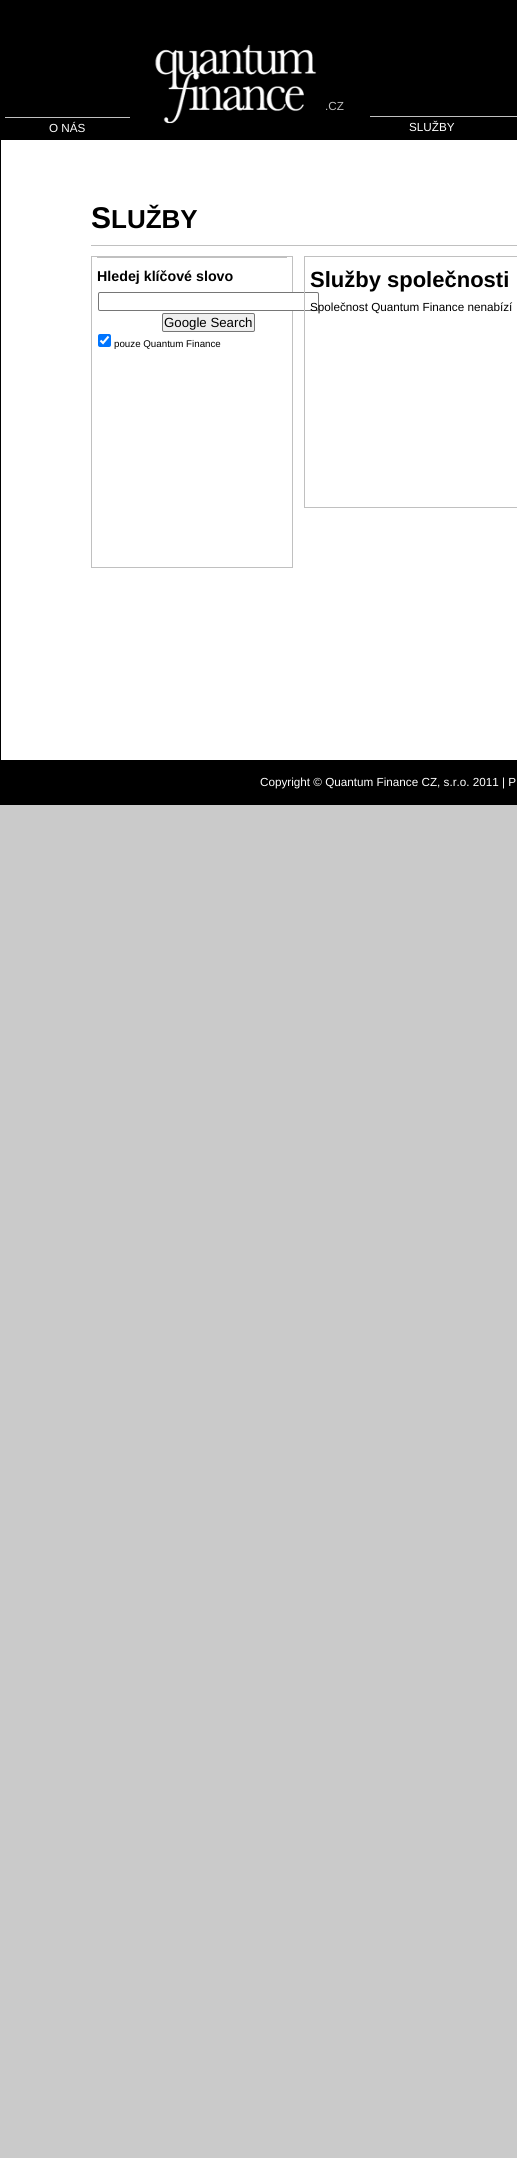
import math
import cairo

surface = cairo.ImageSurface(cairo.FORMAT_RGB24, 517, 2158)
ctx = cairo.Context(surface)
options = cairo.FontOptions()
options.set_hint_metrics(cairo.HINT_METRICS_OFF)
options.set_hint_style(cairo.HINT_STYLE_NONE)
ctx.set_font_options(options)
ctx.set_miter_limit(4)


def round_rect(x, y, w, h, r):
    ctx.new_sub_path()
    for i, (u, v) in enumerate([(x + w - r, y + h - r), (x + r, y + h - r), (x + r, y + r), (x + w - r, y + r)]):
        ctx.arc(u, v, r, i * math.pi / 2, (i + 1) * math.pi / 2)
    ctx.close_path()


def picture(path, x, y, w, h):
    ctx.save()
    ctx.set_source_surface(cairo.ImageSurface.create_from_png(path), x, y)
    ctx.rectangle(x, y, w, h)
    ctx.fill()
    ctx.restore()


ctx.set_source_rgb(0.792, 0.792, 0.792)
ctx.paint()
ctx.set_source_rgb(0, 0, 0)
ctx.rectangle(0, 0, 517, 140)
ctx.fill()
picture("img1.png", 155, 45, 162, 79)
ctx.select_font_face("Liberation Sans")
ctx.set_font_size(11.7)
ctx.set_source_rgb(0.753, 0.753, 0.753)
ctx.move_to(325, 110)
ctx.show_text(".CZ")
ctx.rectangle(5, 117, 125, 1)
ctx.fill()
ctx.set_source_rgb(1, 1, 1)
ctx.move_to(49, 132)
ctx.show_text("O NÁS")
ctx.set_source_rgb(0.753, 0.753, 0.753)
ctx.rectangle(370, 116, 147, 1)
ctx.fill()
ctx.set_source_rgb(1, 1, 1)
ctx.move_to(409, 131)
ctx.show_text("SLUŽBY")
ctx.rectangle(1, 140, 516, 620)
ctx.fill()
ctx.set_source_rgb(0, 0, 0)
ctx.rectangle(0, 140, 1, 620)
ctx.fill()
ctx.set_source_rgb(0.753, 0.753, 0.753)
ctx.rectangle(91, 245, 426, 1)
ctx.fill()
ctx.select_font_face("Liberation Sans", cairo.FONT_SLANT_NORMAL, cairo.FONT_WEIGHT_BOLD)
ctx.set_font_size(30)
ctx.set_source_rgb(0, 0, 0)
ctx.move_to(91, 228)
ctx.show_text("S")
ctx.set_font_size(26)
ctx.move_to(111, 228)
ctx.show_text("LUŽBY")
ctx.rectangle(91.5, 256.5, 201, 311)
ctx.set_source_rgb(0.753, 0.753, 0.753)
ctx.set_line_width(1)
ctx.stroke()
ctx.rectangle(97, 257, 190, 1)
ctx.fill()
ctx.set_font_size(14.25)
ctx.set_source_rgb(0, 0, 0)
ctx.move_to(97, 281)
ctx.show_text("Hledej klíčové slovo")
ctx.set_source_rgb(1, 1, 1)
round_rect(98.5, 292.5, 220, 18, 1.5)
ctx.fill_preserve()
ctx.set_source_rgb(0.463, 0.463, 0.463)
ctx.stroke()
ctx.set_source_rgb(0.937, 0.937, 0.937)
round_rect(162.5, 313.5, 92, 18, 1.5)
ctx.fill_preserve()
ctx.set_source_rgb(0.463, 0.463, 0.463)
ctx.stroke()
ctx.select_font_face("Liberation Sans")
ctx.set_font_size(13.25)
ctx.set_source_rgb(0, 0, 0)
ctx.move_to(164, 327)
ctx.show_text("Google Search")
ctx.set_source_rgb(0, 0.459, 1)
round_rect(98, 334, 13, 13, 2)
ctx.fill()
ctx.new_path()
ctx.move_to(100.5, 340.5)
ctx.line_to(103, 343)
ctx.line_to(108.5, 336.5)
ctx.set_source_rgb(1, 1, 1)
ctx.set_line_width(2.1)
ctx.stroke()
ctx.set_font_size(9.75)
ctx.set_source_rgb(0, 0, 0)
ctx.move_to(114, 347)
ctx.show_text("pouze Quantum Finance")
ctx.rectangle(304.5, 256.5, 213, 251)
ctx.set_source_rgb(0.753, 0.753, 0.753)
ctx.set_line_width(1)
ctx.stroke()
ctx.select_font_face("Liberation Sans", cairo.FONT_SLANT_NORMAL, cairo.FONT_WEIGHT_BOLD)
ctx.set_font_size(22)
ctx.set_source_rgb(0, 0, 0)
ctx.move_to(310, 287)
ctx.show_text("Služby společnosti")
ctx.select_font_face("Liberation Sans")
ctx.set_font_size(11.7)
ctx.move_to(310, 311)
ctx.show_text("Společnost Quantum Finance nenabízí")
ctx.rectangle(0, 760, 517, 45)
ctx.fill()
ctx.set_source_rgb(1, 1, 1)
ctx.move_to(260, 786)
ctx.show_text("Copyright © Quantum Finance CZ, s.r.o. 2011 | P")
surface.write_to_png("page.png")
